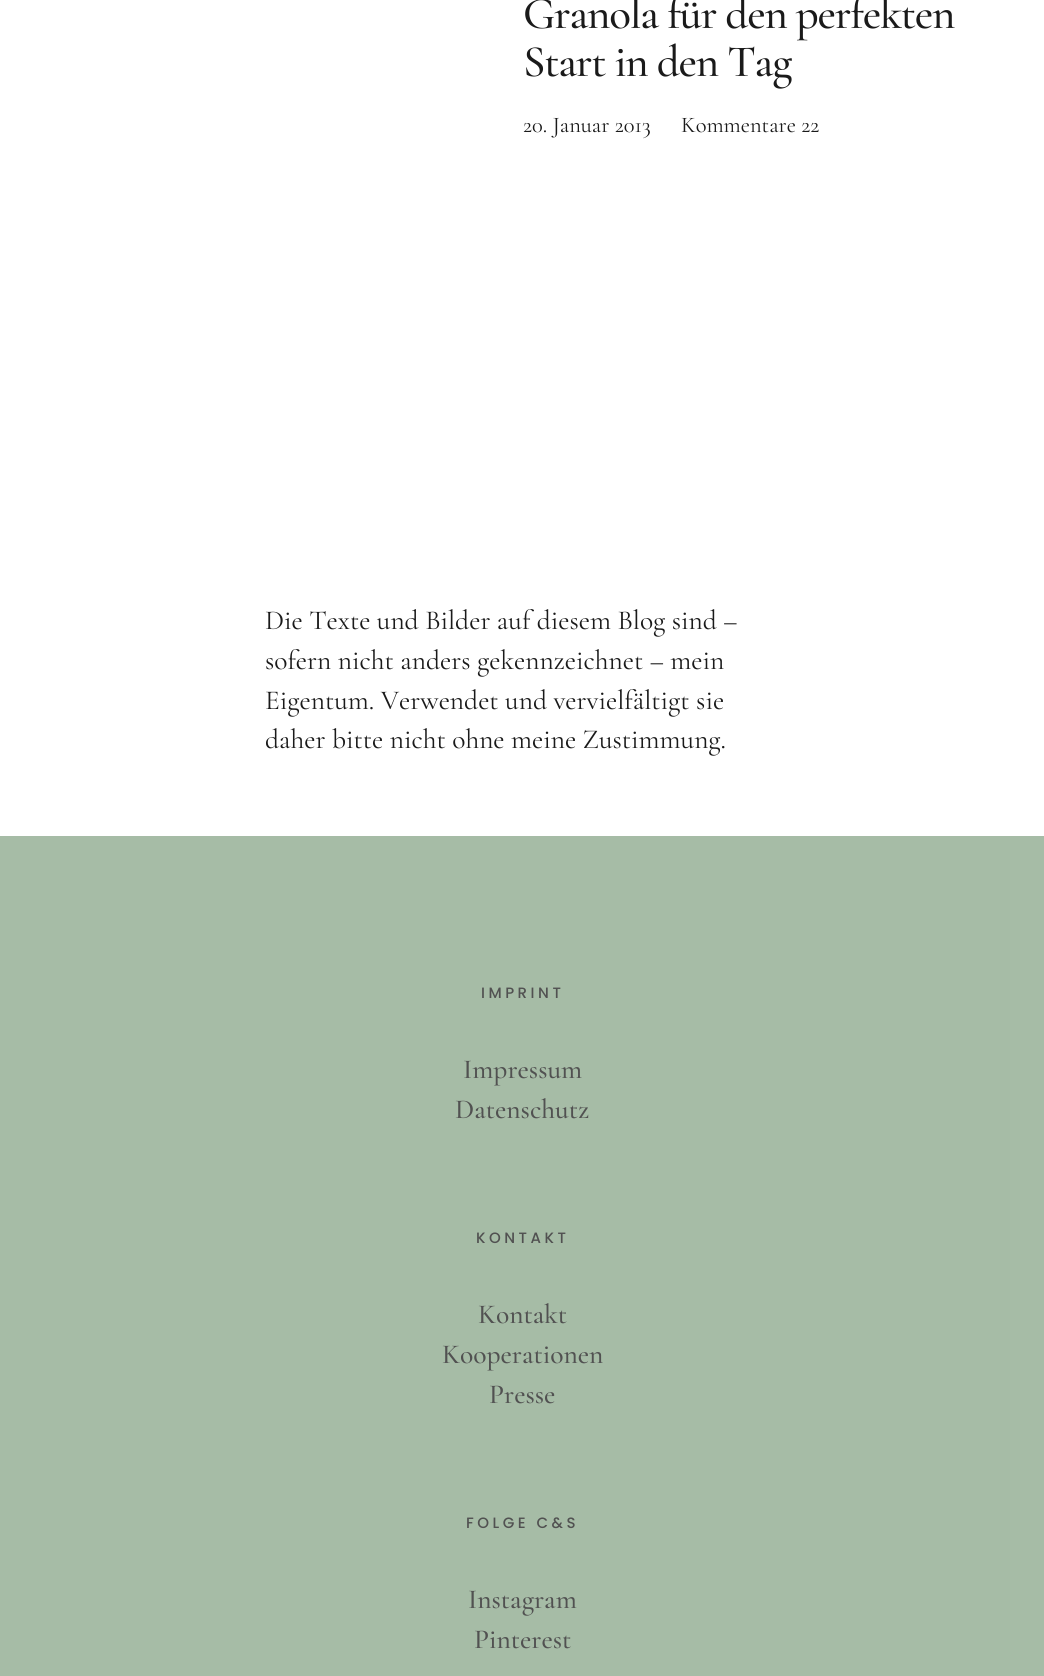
import math
import cairo

surface = cairo.ImageSurface(cairo.FORMAT_RGB24, 1044, 1676)
ctx = cairo.Context(surface)
options = cairo.FontOptions()
options.set_hint_metrics(cairo.HINT_METRICS_OFF)
options.set_hint_style(cairo.HINT_STYLE_NONE)
ctx.set_font_options(options)
ctx.set_miter_limit(4)


def spaced_text(x, y, s, letter, word):
    ctx.move_to(x, y)
    for ch in s:
        ctx.show_text(ch)
        ctx.rel_move_to(letter + word * (ch == ' '), 0)


ctx.set_source_rgb(1, 1, 1)
ctx.paint()
ctx.select_font_face("Cormorant Garamond Medium")
ctx.set_font_size(45)
ctx.set_source_rgb(0.102, 0.102, 0.102)
spaced_text(523, 28, "Granola für den perfekten", -1.25, 0)
spaced_text(523, 76, "Start in den Tag", -1.25, 0)
ctx.select_font_face("Cormorant Garamond")
ctx.set_font_size(22.5)
ctx.move_to(523, 132)
ctx.show_text("20. Januar 2013")
ctx.move_to(681, 132)
ctx.show_text("Kommentare 22")
ctx.set_font_size(27.5)
ctx.move_to(265, 629)
ctx.show_text("Die Texte und Bilder auf diesem Blog sind –")
ctx.move_to(265, 669)
ctx.show_text("sofern nicht anders gekennzeichnet – mein")
ctx.move_to(265, 709)
ctx.show_text("Eigentum. Verwendet und vervielfältigt sie")
ctx.move_to(265, 748)
ctx.show_text("daher bitte nicht ohne meine Zustimmung.")
ctx.set_source_rgb(0.651, 0.737, 0.651)
ctx.rectangle(0, 836, 1044, 840)
ctx.fill()
ctx.select_font_face("Poppins Medium")
ctx.set_font_size(15)
ctx.set_source_rgb(0.318, 0.318, 0.318)
spaced_text(481, 998, "IMPRINT", 3.5, 0)
ctx.select_font_face("Cormorant Garamond Medium")
ctx.set_font_size(27.5)
ctx.move_to(463, 1078)
ctx.show_text("Impressum")
ctx.move_to(455, 1118)
ctx.show_text("Datenschutz")
ctx.select_font_face("Poppins Medium")
ctx.set_font_size(15)
spaced_text(476, 1243, "KONTAKT", 3.5, 0)
ctx.select_font_face("Cormorant Garamond Medium")
ctx.set_font_size(27.5)
ctx.move_to(478, 1323)
ctx.show_text("Kontakt")
ctx.move_to(442, 1363)
ctx.show_text("Kooperationen")
ctx.move_to(489, 1403)
ctx.show_text("Presse")
ctx.select_font_face("Poppins Medium")
ctx.set_font_size(15)
spaced_text(466, 1528, "FOLGE C&S", 3.5, 0)
ctx.select_font_face("Cormorant Garamond Medium")
ctx.set_font_size(27.5)
ctx.move_to(468, 1608)
ctx.show_text("Instagram")
ctx.move_to(474, 1648)
ctx.show_text("Pinterest")
surface.write_to_png("page.png")
